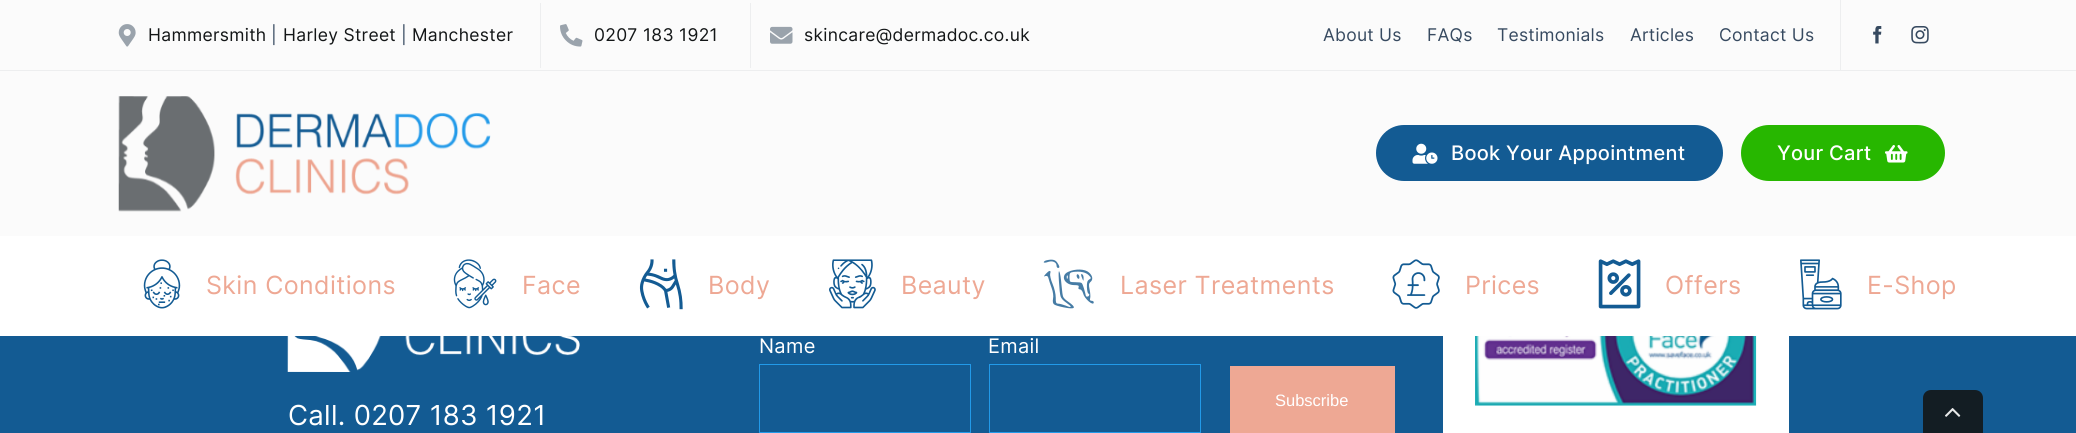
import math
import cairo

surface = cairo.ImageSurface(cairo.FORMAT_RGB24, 2076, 433)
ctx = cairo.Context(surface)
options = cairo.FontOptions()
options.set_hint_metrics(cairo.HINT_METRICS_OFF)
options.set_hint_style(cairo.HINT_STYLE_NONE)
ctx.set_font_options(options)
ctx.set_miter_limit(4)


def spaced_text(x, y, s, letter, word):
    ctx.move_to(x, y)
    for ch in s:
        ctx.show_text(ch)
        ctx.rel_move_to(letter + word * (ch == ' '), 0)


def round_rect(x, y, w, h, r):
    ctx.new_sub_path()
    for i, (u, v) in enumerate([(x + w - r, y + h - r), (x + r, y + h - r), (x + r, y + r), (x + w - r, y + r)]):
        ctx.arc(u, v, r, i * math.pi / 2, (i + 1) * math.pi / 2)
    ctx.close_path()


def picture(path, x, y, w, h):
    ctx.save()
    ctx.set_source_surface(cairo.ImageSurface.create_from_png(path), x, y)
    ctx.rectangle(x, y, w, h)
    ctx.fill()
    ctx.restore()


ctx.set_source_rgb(0.075, 0.357, 0.576)
ctx.paint()
ctx.set_source_rgb(0.984, 0.984, 0.984)
ctx.rectangle(0, 0, 2076, 236)
ctx.fill()
ctx.set_source_rgb(0.929, 0.933, 0.937)
ctx.rectangle(0, 70, 2076, 1)
ctx.fill()
ctx.rectangle(540, 3, 1, 65)
ctx.fill()
picture("img1.png", 118, 24, 18, 23)
ctx.select_font_face("Inter")
ctx.set_font_size(17.5)
ctx.set_source_rgb(0.078, 0.086, 0.09)
spaced_text(148, 41, "Hammersmith", 0.3, 0)
ctx.set_source_rgb(0.216, 0.29, 0.376)
spaced_text(271, 41, "|", 0.3, 0)
ctx.set_source_rgb(0.078, 0.086, 0.09)
spaced_text(283, 41, "Harley Street", 0.3, 0)
ctx.set_source_rgb(0.216, 0.29, 0.376)
spaced_text(401, 41, "|", 0.3, 0)
ctx.set_source_rgb(0.078, 0.086, 0.09)
spaced_text(412, 41, "Manchester", 0.3, 0)
ctx.set_source_rgb(0.929, 0.933, 0.937)
ctx.rectangle(750, 3, 1, 65)
ctx.fill()
picture("img2.png", 560, 24, 23, 23)
ctx.set_source_rgb(0.078, 0.086, 0.09)
spaced_text(594, 41, "0207 183 1921", 0.3, 0)
picture("img3.png", 770, 26, 23, 18)
spaced_text(804, 41, "skincare@dermadoc.co.uk", 0.3, 0)
ctx.set_source_rgb(0.929, 0.933, 0.937)
ctx.rectangle(1840, 0, 1, 70)
ctx.fill()
ctx.set_source_rgb(0.216, 0.29, 0.376)
spaced_text(1323, 41, "About Us", 0.25, 0)
spaced_text(1427, 41, "FAQs", 0.25, 0)
spaced_text(1497, 41, "Testimonials", 0.25, 0)
spaced_text(1630, 41, "Articles", 0.25, 0)
spaced_text(1719, 41, "Contact Us", 0.25, 0)
picture("img4.png", 1873, 26, 9, 18)
picture("img5.png", 1911, 26, 18, 18)
picture("img6.png", 118, 96, 373, 116)
ctx.set_source_rgb(0.075, 0.357, 0.576)
round_rect(1376, 125, 347, 56, 28)
ctx.fill()
picture("img7.png", 1412, 143, 26, 21)
ctx.select_font_face("Inter Medium")
ctx.set_font_size(20)
ctx.set_source_rgb(1, 1, 1)
spaced_text(1451, 160, "Book Your Appointment", 0.3, 0)
ctx.set_source_rgb(0.153, 0.718, 0)
round_rect(1741, 125, 204, 56, 28)
ctx.fill()
ctx.set_source_rgb(1, 1, 1)
spaced_text(1777, 160, "Your Cart", 0.3, 0)
picture("img8.png", 1885, 145, 23, 18)
ctx.rectangle(0, 236, 2076, 100)
ctx.fill()
picture("img9.png", 143, 259, 38, 50)
ctx.select_font_face("Inter")
ctx.set_font_size(25)
ctx.set_source_rgb(0.933, 0.659, 0.58)
spaced_text(206, 294, "Skin Conditions", 0.4, 0)
picture("img10.png", 453, 259, 44, 50)
spaced_text(522, 294, "Face", 0.4, 0)
picture("img11.png", 639, 259, 44, 51)
spaced_text(708, 294, "Body", 0.4, 0)
picture("img12.png", 829, 259, 47, 50)
spaced_text(901, 294, "Beauty", 0.4, 0)
picture("img13.png", 1043, 259, 51, 50)
spaced_text(1120, 294, "Laser Treatments", 0.4, 0)
picture("img14.png", 1392, 259, 48, 50)
spaced_text(1465, 294, "Prices", 0.4, 0)
picture("img15.png", 1598, 259, 43, 50)
spaced_text(1665, 294, "Offers", 0.4, 0)
picture("img16.png", 1800, 259, 42, 51)
spaced_text(1867, 294, "E-Shop", 0.4, 0)
ctx.set_font_size(20)
ctx.set_source_rgb(1, 1, 1)
spaced_text(759, 353, "Name", 0.3, 0)
ctx.rectangle(759.5, 364.5, 211, 68)
ctx.set_source_rgb(0.133, 0.604, 0.914)
ctx.set_line_width(1)
ctx.stroke()
ctx.set_source_rgb(1, 1, 1)
spaced_text(988, 353, "Email", 0.3, 0)
ctx.rectangle(989.5, 364.5, 211, 68)
ctx.set_source_rgb(0.133, 0.604, 0.914)
ctx.stroke()
ctx.set_source_rgb(0.933, 0.659, 0.58)
ctx.rectangle(1230, 366, 165, 67)
ctx.fill()
ctx.select_font_face("Liberation Sans")
ctx.set_font_size(16.5)
ctx.set_source_rgb(1, 1, 1)
ctx.move_to(1275, 406)
ctx.show_text("Subscribe")
ctx.rectangle(1443, 336, 346, 97)
ctx.fill()
picture("img17.png", 1475, 336, 282, 70)
picture("img18.png", 287, 336, 293, 36)
ctx.select_font_face("Inter")
ctx.set_font_size(27.5)
spaced_text(288, 425, "Call. 0207 183 1921", 0.3, 0)
ctx.set_source_rgb(0.078, 0.114, 0.137)
ctx.new_path()
ctx.move_to(1931, 390)
ctx.line_to(1975, 390)
ctx.curve_to(1979.5, 390, 1983, 393.5, 1983, 398)
ctx.line_to(1983, 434)
ctx.line_to(1923, 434)
ctx.line_to(1923, 398)
ctx.curve_to(1923, 393.5, 1926.5, 390, 1931, 390)
ctx.close_path()
ctx.fill()
picture("img19.png", 1945, 408, 16, 9)
surface.write_to_png("page.png")
